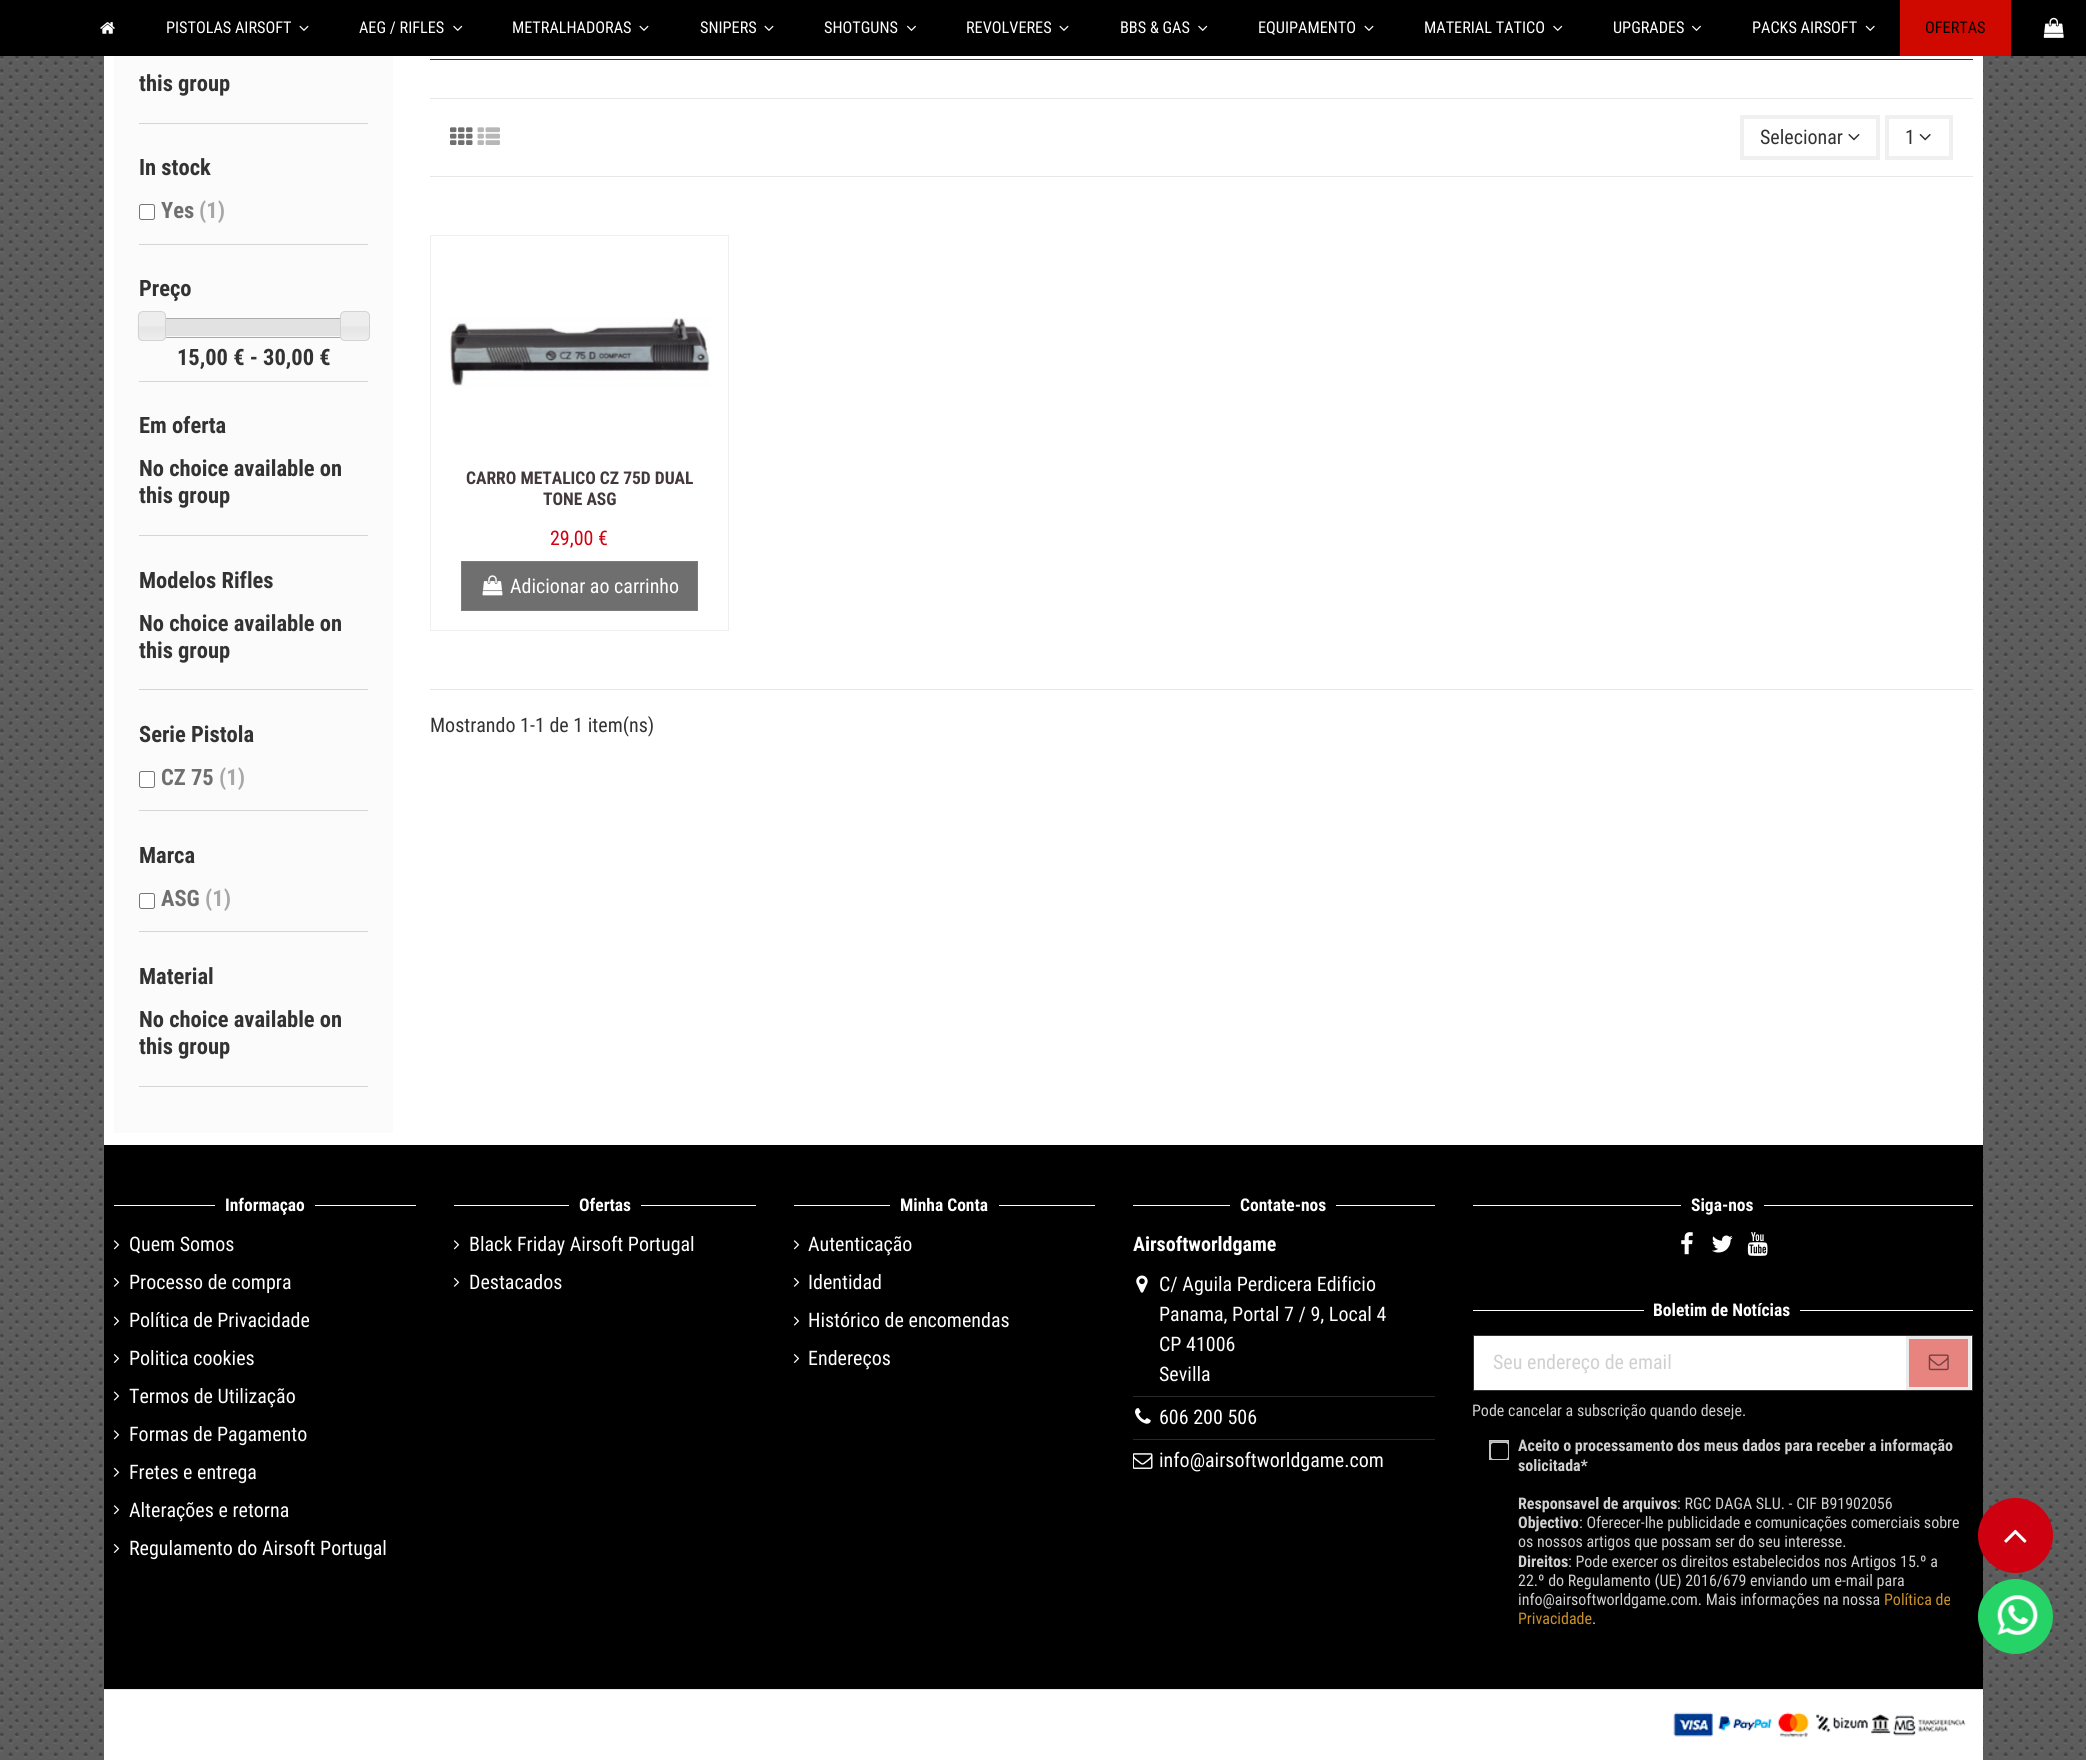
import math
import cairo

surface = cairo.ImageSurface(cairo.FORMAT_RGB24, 2086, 1760)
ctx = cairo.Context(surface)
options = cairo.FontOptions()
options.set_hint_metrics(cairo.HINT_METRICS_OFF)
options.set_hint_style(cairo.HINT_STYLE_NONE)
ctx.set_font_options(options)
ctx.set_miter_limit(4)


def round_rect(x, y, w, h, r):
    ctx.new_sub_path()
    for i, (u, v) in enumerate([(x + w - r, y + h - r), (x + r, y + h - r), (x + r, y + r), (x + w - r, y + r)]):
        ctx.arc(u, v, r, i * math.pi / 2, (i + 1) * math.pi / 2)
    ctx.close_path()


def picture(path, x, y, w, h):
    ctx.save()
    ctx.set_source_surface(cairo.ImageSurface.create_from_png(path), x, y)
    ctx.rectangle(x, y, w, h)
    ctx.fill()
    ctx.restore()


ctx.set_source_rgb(1, 1, 1)
ctx.paint()
picture("img1.png", 0, 56, 2086, 1704)
ctx.set_source_rgb(0, 0, 0)
ctx.rectangle(0, 0, 2086, 56)
ctx.fill()
picture("img2.png", 100, 22, 15, 12)
ctx.select_font_face("Roboto Condensed")
ctx.set_font_size(16.25)
ctx.set_source_rgb(1, 1, 1)
ctx.move_to(166, 33)
ctx.show_text("PISTOLAS AIRSOFT")
picture("img3.png", 299, 25, 10, 6)
ctx.move_to(359, 33)
ctx.show_text("AEG / RIFLES")
picture("img4.png", 453, 25, 10, 6)
ctx.move_to(512, 33)
ctx.show_text("METRALHADORAS")
picture("img3.png", 639, 25, 10, 6)
ctx.move_to(700, 33)
ctx.show_text("SNIPERS")
picture("img3.png", 764, 25, 10, 6)
ctx.move_to(824, 33)
ctx.show_text("SHOTGUNS")
picture("img5.png", 907, 25, 9, 6)
ctx.move_to(966, 33)
ctx.show_text("REVOLVERES")
picture("img3.png", 1059, 25, 10, 6)
ctx.move_to(1120, 33)
ctx.show_text("BBS & GAS")
picture("img4.png", 1198, 25, 10, 6)
ctx.move_to(1258, 33)
ctx.show_text("EQUIPAMENTO")
picture("img3.png", 1364, 25, 10, 6)
ctx.move_to(1424, 33)
ctx.show_text("MATERIAL TATICO")
picture("img4.png", 1553, 25, 10, 6)
ctx.move_to(1613, 33)
ctx.show_text("UPGRADES")
picture("img5.png", 1692, 25, 9, 6)
ctx.move_to(1752, 33)
ctx.show_text("PACKS AIRSOFT")
picture("img6.png", 1865, 25, 10, 6)
ctx.set_source_rgb(0.812, 0.035, 0)
ctx.rectangle(1900, 0, 111, 56)
ctx.fill()
ctx.set_source_rgb(0, 0, 0)
ctx.move_to(1925, 33)
ctx.show_text("OFERTAS")
picture("img7.png", 2043, 17, 21, 21)
ctx.set_source_rgb(1, 1, 1)
ctx.rectangle(104, 56, 1879, 1089)
ctx.fill()
ctx.set_source_rgb(0.984, 0.984, 0.984)
ctx.rectangle(114, 56, 279, 1077)
ctx.fill()
ctx.set_source_rgb(0.839, 0.831, 0.831)
ctx.rectangle(139, 123, 229, 1)
ctx.fill()
ctx.select_font_face("Roboto Condensed", cairo.FONT_SLANT_NORMAL, cairo.FONT_WEIGHT_BOLD)
ctx.set_font_size(22.5)
ctx.set_source_rgb(0.2, 0.2, 0.2)
ctx.move_to(139, 91)
ctx.show_text("this group")
ctx.set_source_rgb(0.839, 0.831, 0.831)
ctx.rectangle(139, 244, 229, 1)
ctx.fill()
ctx.set_source_rgb(0.2, 0.2, 0.2)
ctx.move_to(139, 175)
ctx.show_text("In stock")
ctx.set_source_rgb(1, 1, 1)
round_rect(139.5, 204.5, 15, 15, 2)
ctx.fill_preserve()
ctx.set_source_rgb(0.463, 0.463, 0.463)
ctx.set_line_width(1)
ctx.stroke()
ctx.set_source_rgb(0.435, 0.435, 0.435)
ctx.move_to(161, 218)
ctx.show_text("Yes")
ctx.set_source_rgb(0.655, 0.655, 0.655)
ctx.move_to(199, 218)
ctx.show_text("(1)")
ctx.set_source_rgb(0.839, 0.831, 0.831)
ctx.rectangle(139, 381, 229, 1)
ctx.fill()
ctx.set_source_rgb(0.2, 0.2, 0.2)
ctx.move_to(139, 296)
ctx.show_text("Preço")
ctx.set_source_rgb(1, 1, 1)
ctx.rectangle(166, 336, 174, 1)
ctx.fill()
ctx.rectangle(151.5, 318.5, 204, 19)
ctx.set_source_rgb(0.667, 0.667, 0.667)
ctx.stroke()
picture("img9.png", 166, 319, 174, 18)
picture("img8.png", 137, 312, 30, 29)
round_rect(138.5, 311.5, 27, 29, 4.5)
ctx.set_source_rgb(0.827, 0.827, 0.827)
ctx.stroke()
picture("img10.png", 340, 312, 30, 29)
round_rect(340.5, 311.5, 29, 29, 4.5)
ctx.stroke()
ctx.set_source_rgb(0.2, 0.2, 0.2)
ctx.move_to(177, 365)
ctx.show_text("15,00 € - 30,00 €")
ctx.set_source_rgb(0.839, 0.831, 0.831)
ctx.rectangle(139, 535, 229, 1)
ctx.fill()
ctx.set_source_rgb(0.2, 0.2, 0.2)
ctx.move_to(139, 433)
ctx.show_text("Em oferta")
ctx.move_to(139, 476)
ctx.show_text("No choice available on")
ctx.move_to(139, 503)
ctx.show_text("this group")
ctx.set_source_rgb(0.839, 0.831, 0.831)
ctx.rectangle(139, 689, 229, 1)
ctx.fill()
ctx.set_source_rgb(0.2, 0.2, 0.2)
ctx.move_to(139, 588)
ctx.show_text("Modelos Rifles")
ctx.move_to(139, 631)
ctx.show_text("No choice available on")
ctx.move_to(139, 658)
ctx.show_text("this group")
ctx.set_source_rgb(0.839, 0.831, 0.831)
ctx.rectangle(139, 810, 229, 1)
ctx.fill()
ctx.set_source_rgb(0.2, 0.2, 0.2)
ctx.move_to(139, 742)
ctx.show_text("Serie Pistola")
ctx.set_source_rgb(1, 1, 1)
round_rect(139.5, 771.5, 15, 16, 2)
ctx.fill_preserve()
ctx.set_source_rgb(0.463, 0.463, 0.463)
ctx.stroke()
ctx.set_source_rgb(0.435, 0.435, 0.435)
ctx.move_to(161, 785)
ctx.show_text("CZ 75")
ctx.set_source_rgb(0.655, 0.655, 0.655)
ctx.move_to(219, 785)
ctx.show_text("(1)")
ctx.set_source_rgb(0.839, 0.831, 0.831)
ctx.rectangle(139, 931, 229, 1)
ctx.fill()
ctx.set_source_rgb(0.2, 0.2, 0.2)
ctx.move_to(139, 863)
ctx.show_text("Marca")
ctx.set_source_rgb(1, 1, 1)
round_rect(139.5, 893.5, 15, 15, 2)
ctx.fill_preserve()
ctx.set_source_rgb(0.463, 0.463, 0.463)
ctx.stroke()
ctx.set_source_rgb(0.435, 0.435, 0.435)
ctx.move_to(161, 906)
ctx.show_text("ASG")
ctx.set_source_rgb(0.655, 0.655, 0.655)
ctx.move_to(205, 906)
ctx.show_text("(1)")
ctx.set_source_rgb(0.839, 0.831, 0.831)
ctx.rectangle(139, 1086, 229, 1)
ctx.fill()
ctx.set_source_rgb(0.2, 0.2, 0.2)
ctx.move_to(139, 984)
ctx.show_text("Material")
ctx.move_to(139, 1027)
ctx.show_text("No choice available on")
ctx.move_to(139, 1054)
ctx.show_text("this group")
ctx.rectangle(430, 59, 1543, 1)
ctx.fill()
ctx.set_source_rgb(0.906, 0.906, 0.906)
ctx.rectangle(430, 98, 1543, 1)
ctx.fill()
ctx.rectangle(430, 176, 1543, 1)
ctx.fill()
picture("img11.png", 450, 127, 23, 18)
picture("img12.png", 477, 127, 23, 18)
ctx.rectangle(1742, 117, 136, 41)
ctx.set_source_rgb(0.941, 0.941, 0.941)
ctx.set_line_width(4)
ctx.stroke()
ctx.select_font_face("Roboto Condensed")
ctx.set_font_size(20)
ctx.set_source_rgb(0.2, 0.2, 0.2)
ctx.move_to(1760, 144)
ctx.show_text("Selecionar")
picture("img13.png", 1848, 133, 12, 8)
ctx.rectangle(1887, 117, 64, 41)
ctx.set_source_rgb(0.941, 0.941, 0.941)
ctx.stroke()
ctx.set_source_rgb(0.2, 0.2, 0.2)
ctx.move_to(1905, 144)
ctx.show_text("1")
picture("img14.png", 1919, 133, 12, 8)
ctx.rectangle(430.5, 235.5, 298, 395)
ctx.set_source_rgb(0.937, 0.937, 0.937)
ctx.set_line_width(1)
ctx.stroke()
picture("img15.png", 449, 317, 261, 70)
ctx.select_font_face("Roboto Condensed", cairo.FONT_SLANT_NORMAL, cairo.FONT_WEIGHT_BOLD)
ctx.set_font_size(17.5)
ctx.set_source_rgb(0.263, 0.22, 0.235)
ctx.move_to(466, 484)
ctx.show_text("CARRO METALICO CZ 75D DUAL")
ctx.move_to(543, 505)
ctx.show_text("TONE ASG")
ctx.select_font_face("Roboto Condensed")
ctx.set_font_size(20)
ctx.set_source_rgb(0.812, 0, 0.063)
ctx.move_to(550, 545)
ctx.show_text("29,00 €")
ctx.set_source_rgb(0.435, 0.435, 0.435)
ctx.rectangle(461.5, 561.5, 236, 49)
ctx.fill_preserve()
ctx.set_source_rgb(0.486, 0.486, 0.486)
ctx.stroke()
picture("img16.png", 482, 575, 21, 21)
ctx.set_source_rgb(1, 1, 1)
ctx.move_to(510, 593)
ctx.show_text("Adicionar ao carrinho")
ctx.set_source_rgb(0.906, 0.906, 0.906)
ctx.rectangle(430, 689, 1543, 1)
ctx.fill()
ctx.set_source_rgb(0.2, 0.2, 0.2)
ctx.move_to(430, 732)
ctx.show_text("Mostrando 1-1 de 1 item(ns)")
ctx.set_source_rgb(0, 0, 0)
ctx.rectangle(104, 1145, 1879, 544)
ctx.fill()
ctx.set_source_rgb(1, 1, 1)
ctx.rectangle(114, 1205, 101, 1)
ctx.fill()
ctx.select_font_face("Roboto Condensed", cairo.FONT_SLANT_NORMAL, cairo.FONT_WEIGHT_BOLD)
ctx.set_font_size(17.5)
ctx.move_to(225, 1211)
ctx.show_text("Informaçao")
ctx.rectangle(315, 1205, 101, 1)
ctx.fill()
picture("img17.png", 113, 1240, 7, 10)
ctx.select_font_face("Roboto Condensed")
ctx.set_font_size(20)
ctx.move_to(129, 1251)
ctx.show_text("Quem Somos")
picture("img18.png", 113, 1277, 7, 10)
ctx.move_to(129, 1289)
ctx.show_text("Processo de compra")
picture("img19.png", 113, 1316, 7, 10)
ctx.move_to(129, 1327)
ctx.show_text("Política de Privacidade")
picture("img20.png", 113, 1354, 7, 9)
ctx.move_to(129, 1365)
ctx.show_text("Politica cookies")
picture("img19.png", 113, 1391, 7, 10)
ctx.move_to(129, 1403)
ctx.show_text("Termos de Utilização")
picture("img17.png", 113, 1430, 7, 10)
ctx.move_to(129, 1441)
ctx.show_text("Formas de Pagamento")
picture("img18.png", 113, 1467, 7, 10)
ctx.move_to(129, 1479)
ctx.show_text("Fretes e entrega")
picture("img17.png", 113, 1505, 7, 10)
ctx.move_to(129, 1517)
ctx.show_text("Alterações e retorna")
picture("img20.png", 113, 1544, 7, 9)
ctx.move_to(129, 1555)
ctx.show_text("Regulamento do Airsoft Portugal")
ctx.rectangle(454, 1205, 115, 1)
ctx.fill()
ctx.select_font_face("Roboto Condensed", cairo.FONT_SLANT_NORMAL, cairo.FONT_WEIGHT_BOLD)
ctx.set_font_size(17.5)
ctx.move_to(579, 1211)
ctx.show_text("Ofertas")
ctx.rectangle(641, 1205, 115, 1)
ctx.fill()
picture("img17.png", 453, 1240, 7, 10)
ctx.select_font_face("Roboto Condensed")
ctx.set_font_size(20)
ctx.move_to(469, 1251)
ctx.show_text("Black Friday Airsoft Portugal")
picture("img18.png", 453, 1277, 7, 10)
ctx.move_to(469, 1289)
ctx.show_text("Destacados")
ctx.rectangle(794, 1205, 96, 1)
ctx.fill()
ctx.select_font_face("Roboto Condensed", cairo.FONT_SLANT_NORMAL, cairo.FONT_WEIGHT_BOLD)
ctx.set_font_size(17.5)
ctx.move_to(900, 1211)
ctx.show_text("Minha Conta")
ctx.rectangle(999, 1205, 96, 1)
ctx.fill()
picture("img17.png", 793, 1240, 7, 10)
ctx.select_font_face("Roboto Condensed")
ctx.set_font_size(20)
ctx.move_to(808, 1251)
ctx.show_text("Autenticação")
picture("img18.png", 793, 1277, 7, 10)
ctx.move_to(808, 1289)
ctx.show_text("Identidad")
picture("img19.png", 793, 1316, 7, 10)
ctx.move_to(808, 1327)
ctx.show_text("Histórico de encomendas")
picture("img20.png", 793, 1354, 7, 9)
ctx.move_to(808, 1365)
ctx.show_text("Endereços")
ctx.rectangle(1133, 1205, 97, 1)
ctx.fill()
ctx.select_font_face("Roboto Condensed", cairo.FONT_SLANT_NORMAL, cairo.FONT_WEIGHT_BOLD)
ctx.set_font_size(17.5)
ctx.move_to(1240, 1211)
ctx.show_text("Contate-nos")
ctx.rectangle(1336, 1205, 99, 1)
ctx.fill()
ctx.set_font_size(20)
ctx.move_to(1133, 1251)
ctx.show_text("Airsoftworldgame")
picture("img21.png", 1136, 1275, 12, 18)
ctx.select_font_face("Roboto Condensed")
ctx.move_to(1159, 1291)
ctx.show_text("C/ Aguila Perdicera Edificio")
ctx.move_to(1159, 1321)
ctx.show_text("Panama, Portal 7 / 9, Local 4")
ctx.move_to(1159, 1351)
ctx.show_text("CP 41006")
ctx.move_to(1159, 1381)
ctx.show_text("Sevilla")
ctx.set_source_rgb(0.157, 0.157, 0.157)
ctx.rectangle(1133, 1396, 302, 1)
ctx.fill()
picture("img22.png", 1135, 1408, 16, 16)
ctx.set_source_rgb(1, 1, 1)
ctx.move_to(1159, 1424)
ctx.show_text("606 200 506")
ctx.set_source_rgb(0.157, 0.157, 0.157)
ctx.rectangle(1133, 1439, 302, 1)
ctx.fill()
picture("img23.png", 1133, 1453, 20, 16)
ctx.set_source_rgb(1, 1, 1)
ctx.move_to(1159, 1467)
ctx.show_text("info@airsoftworldgame.com")
ctx.rectangle(1473, 1205, 208, 1)
ctx.fill()
ctx.select_font_face("Roboto Condensed", cairo.FONT_SLANT_NORMAL, cairo.FONT_WEIGHT_BOLD)
ctx.set_font_size(17.5)
ctx.move_to(1691, 1211)
ctx.show_text("Siga-nos")
ctx.rectangle(1764, 1205, 209, 1)
ctx.fill()
picture("img24.png", 1681, 1232, 12, 23)
picture("img25.png", 1712, 1235, 21, 18)
picture("img26.png", 1747, 1232, 21, 24)
ctx.rectangle(1473, 1310, 171, 1)
ctx.fill()
ctx.move_to(1653, 1316)
ctx.show_text("Boletim de Notícias")
ctx.rectangle(1800, 1310, 173, 1)
ctx.fill()
ctx.rectangle(1473.5, 1335.5, 499, 55)
ctx.fill_preserve()
ctx.set_source_rgb(0.2, 0.2, 0.2)
ctx.stroke()
ctx.select_font_face("Roboto Condensed")
ctx.set_font_size(20)
ctx.set_source_rgb(0.816, 0.816, 0.816)
ctx.move_to(1493, 1369)
ctx.show_text("Seu endereço de email")
ctx.set_source_rgb(0.906, 0.518, 0.502)
ctx.rectangle(1907.5, 1337.5, 62, 51)
ctx.fill_preserve()
ctx.set_source_rgb(0.922, 0.918, 0.918)
ctx.set_line_width(3)
ctx.stroke()
picture("img27.png", 1928, 1354, 21, 17)
ctx.set_font_size(16)
ctx.set_source_rgb(0.816, 0.816, 0.816)
ctx.move_to(1472, 1416)
ctx.show_text("Pode cancelar a subscrição quando deseje.")
ctx.set_source_rgb(0.769, 0.769, 0.769)
ctx.rectangle(1489, 1440, 20, 20)
ctx.fill()
ctx.set_source_rgb(0.698, 0.698, 0.698)
ctx.rectangle(1490, 1441, 18, 1)
ctx.fill()
ctx.select_font_face("Roboto Condensed", cairo.FONT_SLANT_NORMAL, cairo.FONT_WEIGHT_BOLD)
ctx.set_source_rgb(0.816, 0.816, 0.816)
ctx.move_to(1518, 1451)
ctx.show_text("Aceito o processamento dos meus dados para receber a informação")
ctx.move_to(1518, 1471)
ctx.show_text("solicitada*")
ctx.move_to(1518, 1509)
ctx.show_text("Responsavel de arquivos")
ctx.select_font_face("Roboto Condensed")
ctx.move_to(1677, 1509)
ctx.show_text(": RGC DAGA SLU. - CIF B91902056")
ctx.select_font_face("Roboto Condensed", cairo.FONT_SLANT_NORMAL, cairo.FONT_WEIGHT_BOLD)
ctx.move_to(1518, 1528)
ctx.show_text("Objectivo")
ctx.select_font_face("Roboto Condensed")
ctx.move_to(1579, 1528)
ctx.show_text(": Oferecer-lhe publicidade e comunicações comerciais sobre")
ctx.move_to(1518, 1547)
ctx.show_text("os nossos artigos que possam ser do seu interesse.")
ctx.select_font_face("Roboto Condensed", cairo.FONT_SLANT_NORMAL, cairo.FONT_WEIGHT_BOLD)
ctx.move_to(1518, 1567)
ctx.show_text("Direitos")
ctx.select_font_face("Roboto Condensed")
ctx.move_to(1568, 1567)
ctx.show_text(": Pode exercer os direitos estabelecidos nos Artigos 15.º a")
ctx.move_to(1518, 1586)
ctx.show_text("22.º do Regulamento (UE) 2016/679 enviando um e-mail para")
ctx.move_to(1518, 1605)
ctx.show_text("info@airsoftworldgame.com. Mais informações na nossa")
ctx.set_source_rgb(0.792, 0.573, 0.161)
ctx.move_to(1884, 1605)
ctx.show_text("Política de")
ctx.move_to(1518, 1624)
ctx.show_text("Privacidade")
ctx.set_source_rgb(0.816, 0.816, 0.816)
ctx.move_to(1592, 1624)
ctx.show_text(".")
ctx.set_source_rgb(0, 0, 0)
round_rect(1491.5, 1443.5, 16, 15, 2)
ctx.fill_preserve()
ctx.set_line_width(1)
ctx.stroke()
ctx.set_source_rgb(1, 1, 1)
ctx.rectangle(104, 1690, 1879, 70)
ctx.fill()
ctx.set_source_rgb(0.91, 0.91, 0.91)
ctx.rectangle(104, 1689, 1879, 1)
ctx.fill()
picture("img28.png", 1673, 1712, 293, 26)
ctx.set_source_rgb(0.812, 0, 0.063)
ctx.arc(2015.5, 1535.5, 37.5, 0, 2 * math.pi)
ctx.fill()
picture("img29.png", 2004, 1529, 23, 14)
ctx.set_source_rgb(0.145, 0.827, 0.4)
ctx.arc(2015.5, 1616.5, 37.5, 0, 2 * math.pi)
ctx.fill()
picture("img30.png", 1997, 1595, 41, 40)
surface.write_to_png("page.png")
